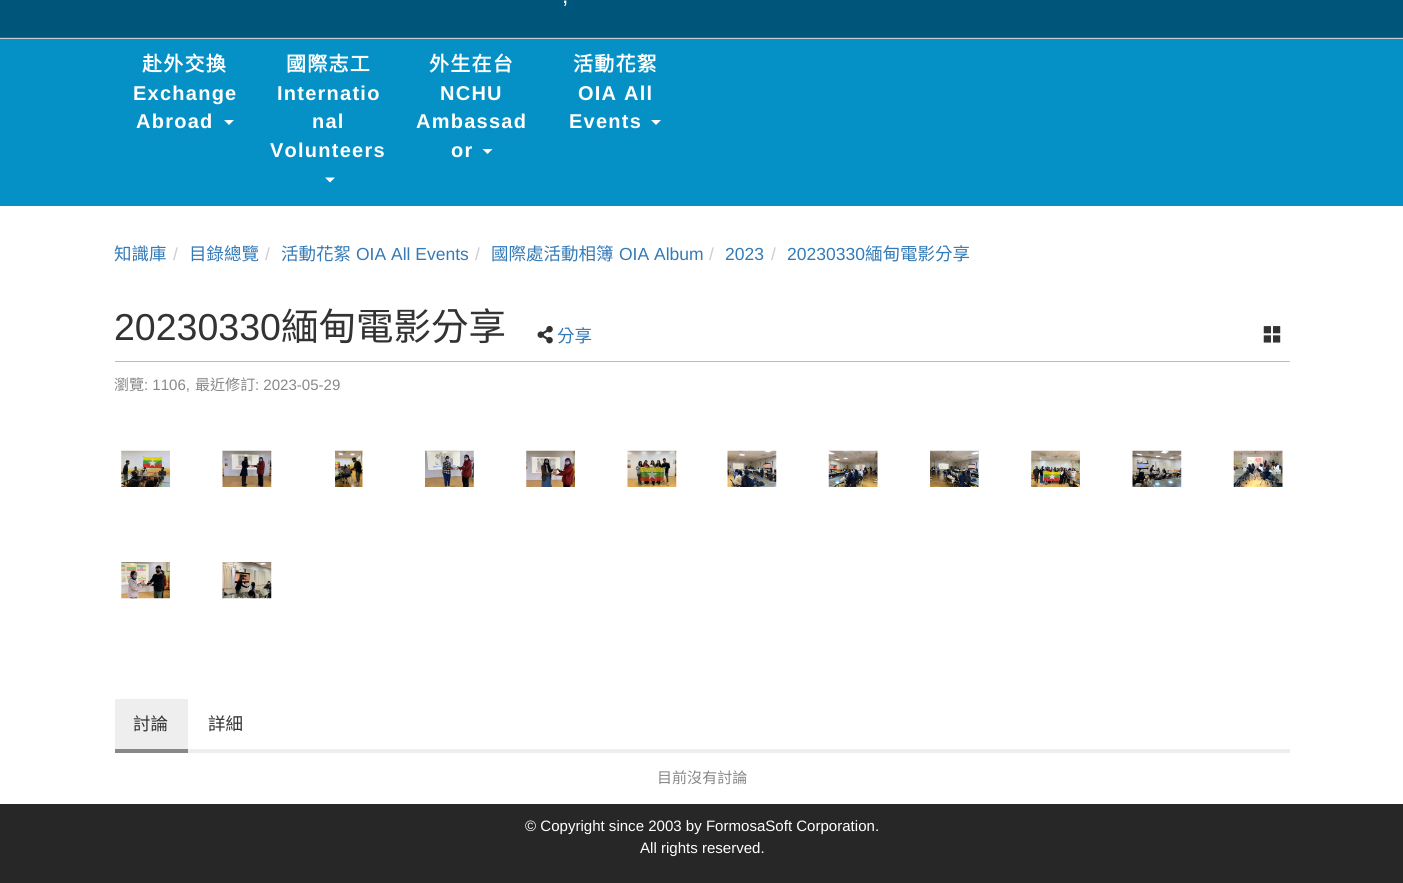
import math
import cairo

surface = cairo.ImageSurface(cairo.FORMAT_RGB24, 1403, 883)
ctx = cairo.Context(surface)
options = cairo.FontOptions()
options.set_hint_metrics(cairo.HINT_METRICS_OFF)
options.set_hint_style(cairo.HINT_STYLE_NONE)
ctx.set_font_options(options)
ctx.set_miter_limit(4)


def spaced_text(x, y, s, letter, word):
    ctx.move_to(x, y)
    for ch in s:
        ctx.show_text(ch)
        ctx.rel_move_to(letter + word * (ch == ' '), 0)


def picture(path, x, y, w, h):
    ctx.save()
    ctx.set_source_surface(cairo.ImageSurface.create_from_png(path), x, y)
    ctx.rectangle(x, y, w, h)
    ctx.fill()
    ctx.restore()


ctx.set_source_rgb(1, 1, 1)
ctx.paint()
ctx.set_source_rgb(0.067, 0.467, 0.467)
ctx.rectangle(0, 37, 1403, 1)
ctx.fill()
ctx.set_source_rgb(0, 0.337, 0.478)
ctx.rectangle(0, 0, 1403, 37)
ctx.fill()
ctx.set_source_rgb(0.8, 0.8, 0.8)
ctx.rectangle(0, 38, 1403, 1)
ctx.fill()
ctx.select_font_face("Liberation Sans")
ctx.set_font_size(23)
ctx.set_source_rgb(1, 1, 1)
spaced_text(562, 3, ",", 1.25, 0)
ctx.set_source_rgb(0.02, 0.569, 0.776)
ctx.rectangle(0, 39, 1403, 167)
ctx.fill()
ctx.select_font_face("Noto Sans CJK TC", cairo.FONT_SLANT_NORMAL, cairo.FONT_WEIGHT_BOLD)
ctx.set_font_size(20)
ctx.set_source_rgb(1, 1, 1)
spaced_text(142, 71, "赴外交換", 1.25, 0)
ctx.select_font_face("Liberation Sans", cairo.FONT_SLANT_NORMAL, cairo.FONT_WEIGHT_BOLD)
spaced_text(133, 100, "Exchange", 1.25, 0)
spaced_text(136, 128, "Abroad", 1.25, 0)
ctx.new_path()
ctx.move_to(224, 120)
ctx.line_to(234, 120)
ctx.line_to(229, 125)
ctx.close_path()
ctx.fill()
ctx.select_font_face("Noto Sans CJK TC", cairo.FONT_SLANT_NORMAL, cairo.FONT_WEIGHT_BOLD)
spaced_text(286, 71, "國際志工", 1.25, 0)
ctx.select_font_face("Liberation Sans", cairo.FONT_SLANT_NORMAL, cairo.FONT_WEIGHT_BOLD)
spaced_text(277, 100, "Internatio", 1.25, 0)
spaced_text(312, 128, "nal", 1.25, 0)
spaced_text(270, 157, "Volunteers", 1.25, 0)
ctx.new_path()
ctx.move_to(325, 177.5)
ctx.line_to(335, 177.5)
ctx.line_to(330, 182.5)
ctx.close_path()
ctx.fill()
ctx.select_font_face("Noto Sans CJK TC", cairo.FONT_SLANT_NORMAL, cairo.FONT_WEIGHT_BOLD)
spaced_text(429, 71, "外生在台", 1.25, 0)
ctx.select_font_face("Liberation Sans", cairo.FONT_SLANT_NORMAL, cairo.FONT_WEIGHT_BOLD)
spaced_text(440, 100, "NCHU", 1.25, 0)
spaced_text(416, 128, "Ambassad", 1.25, 0)
spaced_text(451, 157, "or", 1.25, 0)
ctx.new_path()
ctx.move_to(482.5, 149)
ctx.line_to(492.5, 149)
ctx.line_to(487.5, 154)
ctx.close_path()
ctx.fill()
ctx.select_font_face("Noto Sans CJK TC", cairo.FONT_SLANT_NORMAL, cairo.FONT_WEIGHT_BOLD)
spaced_text(573, 71, "活動花絮", 1.25, 0)
ctx.select_font_face("Liberation Sans", cairo.FONT_SLANT_NORMAL, cairo.FONT_WEIGHT_BOLD)
spaced_text(578, 100, "OIA All", 1.25, 0)
spaced_text(569, 128, "Events", 1.25, 0)
ctx.new_path()
ctx.move_to(651, 120)
ctx.line_to(661, 120)
ctx.line_to(656, 125)
ctx.close_path()
ctx.fill()
ctx.select_font_face("Noto Sans CJK TC")
ctx.set_font_size(17.5)
ctx.set_source_rgb(0.2, 0.478, 0.718)
ctx.move_to(114, 260)
ctx.show_text("知識庫")
ctx.select_font_face("Liberation Sans")
ctx.set_source_rgb(0.8, 0.8, 0.8)
ctx.move_to(173, 260)
ctx.show_text("/")
ctx.select_font_face("Noto Sans CJK TC")
ctx.set_source_rgb(0.2, 0.478, 0.718)
ctx.move_to(189, 260)
ctx.show_text("目錄總覽")
ctx.select_font_face("Liberation Sans")
ctx.set_source_rgb(0.8, 0.8, 0.8)
ctx.move_to(265, 260)
ctx.show_text("/")
ctx.select_font_face("Noto Sans CJK TC")
ctx.set_source_rgb(0.2, 0.478, 0.718)
ctx.move_to(281, 260)
ctx.show_text("活動花絮")
ctx.select_font_face("Liberation Sans")
ctx.move_to(356, 260)
ctx.show_text("OIA All Events")
ctx.set_source_rgb(0.8, 0.8, 0.8)
ctx.move_to(475, 260)
ctx.show_text("/")
ctx.select_font_face("Noto Sans CJK TC")
ctx.set_source_rgb(0.2, 0.478, 0.718)
ctx.move_to(491, 260)
ctx.show_text("國際處活動相簿")
ctx.select_font_face("Liberation Sans")
ctx.move_to(619, 260)
ctx.show_text("OIA Album")
ctx.set_source_rgb(0.8, 0.8, 0.8)
ctx.move_to(709, 260)
ctx.show_text("/")
ctx.set_source_rgb(0.2, 0.478, 0.718)
ctx.move_to(725, 260)
ctx.show_text("2023")
ctx.set_source_rgb(0.8, 0.8, 0.8)
ctx.move_to(771, 260)
ctx.show_text("/")
ctx.set_source_rgb(0.2, 0.478, 0.718)
ctx.move_to(787, 260)
ctx.show_text("20230330")
ctx.select_font_face("Noto Sans CJK TC")
ctx.move_to(865, 260)
ctx.show_text("緬甸電影分享")
ctx.set_source_rgb(0.733, 0.733, 0.733)
ctx.rectangle(115, 361, 1175, 1)
ctx.fill()
ctx.select_font_face("Liberation Sans")
ctx.set_font_size(37.5)
ctx.set_source_rgb(0.2, 0.2, 0.2)
ctx.move_to(114, 340)
ctx.show_text("20230330")
ctx.select_font_face("Noto Sans CJK TC")
ctx.move_to(281, 340)
ctx.show_text("緬甸電影分享")
picture("img1.png", 537, 326, 16, 18)
ctx.set_font_size(17.5)
ctx.set_source_rgb(0.2, 0.478, 0.718)
ctx.move_to(557, 342)
ctx.show_text("分享")
picture("img2.png", 1263, 326, 18, 17)
ctx.set_font_size(15.05)
ctx.set_source_rgb(0.533, 0.533, 0.533)
ctx.move_to(114, 390)
ctx.show_text("瀏覽")
ctx.select_font_face("Liberation Sans")
ctx.move_to(144, 390)
ctx.show_text(": 1106,")
ctx.select_font_face("Noto Sans CJK TC")
ctx.move_to(195, 390)
ctx.show_text("最近修訂")
ctx.select_font_face("Liberation Sans")
ctx.move_to(255, 390)
ctx.show_text(": 2023-05-29")
picture("img3.png", 121, 450, 49, 37)
picture("img4.png", 222, 450, 50, 37)
picture("img5.png", 335, 450, 28, 37)
picture("img6.png", 425, 450, 49, 37)
picture("img7.png", 526, 450, 49, 37)
picture("img8.png", 627, 450, 50, 37)
picture("img9.png", 727, 450, 50, 37)
picture("img10.png", 828, 450, 50, 37)
picture("img11.png", 930, 450, 49, 37)
picture("img12.png", 1031, 450, 49, 37)
picture("img13.png", 1132, 450, 50, 37)
picture("img14.png", 1233, 450, 50, 37)
picture("img15.png", 121, 562, 49, 37)
picture("img16.png", 222, 562, 50, 37)
ctx.set_source_rgb(0.933, 0.933, 0.933)
ctx.rectangle(115, 699, 73, 50)
ctx.fill()
ctx.set_source_rgb(0.533, 0.533, 0.533)
ctx.rectangle(115, 749, 73, 4)
ctx.fill()
ctx.select_font_face("Noto Sans CJK TC")
ctx.set_font_size(17.5)
ctx.set_source_rgb(0.2, 0.2, 0.2)
ctx.move_to(133, 730)
ctx.show_text("討論")
ctx.move_to(208, 730)
ctx.show_text("詳細")
ctx.set_source_rgb(0.933, 0.933, 0.933)
ctx.rectangle(188, 749, 1102, 4)
ctx.fill()
ctx.set_font_size(15.05)
ctx.set_source_rgb(0.533, 0.533, 0.533)
ctx.move_to(657, 783)
ctx.show_text("目前沒有討論")
ctx.set_source_rgb(0.153, 0.153, 0.153)
ctx.rectangle(0, 804, 1403, 79)
ctx.fill()
ctx.select_font_face("Liberation Sans")
ctx.set_source_rgb(1, 1, 1)
ctx.move_to(525, 831)
ctx.show_text("© Copyright since 2003 by FormosaSoft Corporation.")
ctx.move_to(640, 853)
ctx.show_text("All rights reserved.")
surface.write_to_png("page.png")
